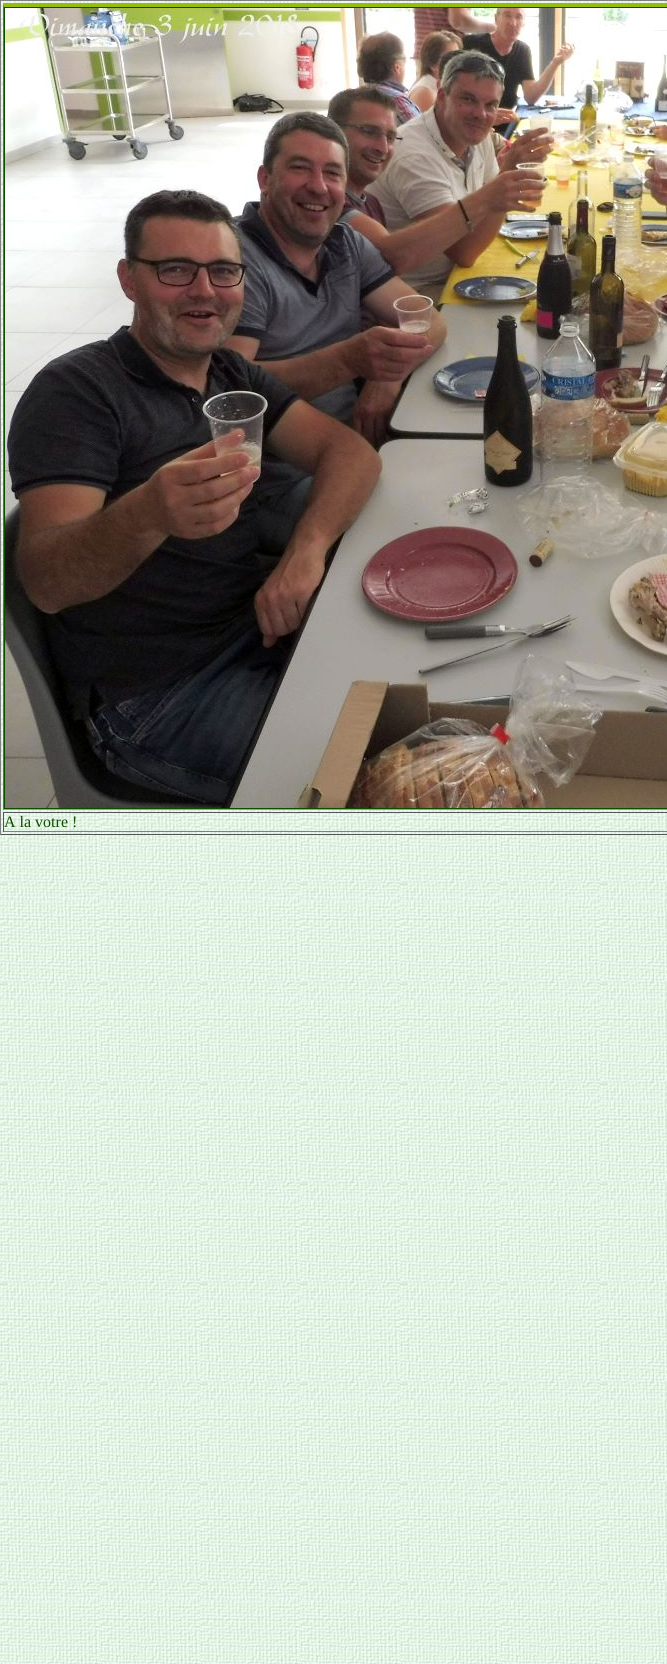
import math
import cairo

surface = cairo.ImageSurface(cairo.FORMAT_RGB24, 667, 1664)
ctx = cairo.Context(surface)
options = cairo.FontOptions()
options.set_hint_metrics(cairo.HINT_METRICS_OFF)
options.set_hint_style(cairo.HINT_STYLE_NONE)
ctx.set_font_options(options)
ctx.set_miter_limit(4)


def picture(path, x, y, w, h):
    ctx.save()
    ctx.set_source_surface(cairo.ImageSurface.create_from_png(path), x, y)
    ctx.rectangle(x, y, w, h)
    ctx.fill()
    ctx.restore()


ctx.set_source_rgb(1, 1, 1)
ctx.paint()
picture("img1.png", 0, 1, 667, 1663)
ctx.set_source_rgb(0.502, 0.502, 0.502)
ctx.rectangle(0, 0, 667, 1)
ctx.fill()
ctx.set_source_rgb(0.333, 0.333, 0.333)
ctx.rectangle(0, 834, 667, 1)
ctx.fill()
ctx.set_source_rgb(0.502, 0.502, 0.502)
ctx.rectangle(0, 0, 1, 835)
ctx.fill()
ctx.set_source_rgb(0.588, 0.737, 0.051)
ctx.new_path()
ctx.move_to(3, 3)
ctx.line_to(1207, 3)
ctx.line_to(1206, 7)
ctx.line_to(4, 7)
ctx.close_path()
ctx.fill()
ctx.rectangle(3, 809, 664, 1)
ctx.fill()
ctx.set_source_rgb(0.392, 0.49, 0.035)
ctx.new_path()
ctx.move_to(3, 810)
ctx.line_to(3, 3)
ctx.line_to(4, 7)
ctx.line_to(4, 809)
ctx.close_path()
ctx.fill()
ctx.rectangle(4.5, 7.5, 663, 801)
ctx.set_source_rgb(0.059, 0.298, 0)
ctx.set_line_width(1)
ctx.stroke()
picture("img2.png", 5, 8, 662, 800)
ctx.set_source_rgb(0.333, 0.333, 0.333)
ctx.rectangle(3, 812, 664, 1)
ctx.fill()
ctx.set_source_rgb(0.502, 0.502, 0.502)
ctx.rectangle(3, 831, 664, 1)
ctx.fill()
ctx.set_source_rgb(0.333, 0.333, 0.333)
ctx.rectangle(3, 812, 1, 20)
ctx.fill()
ctx.select_font_face("Liberation Serif")
ctx.set_font_size(16)
ctx.set_source_rgb(0.059, 0.298, 0)
ctx.move_to(4, 827)
ctx.show_text("A la votre !")
surface.write_to_png("page.png")
